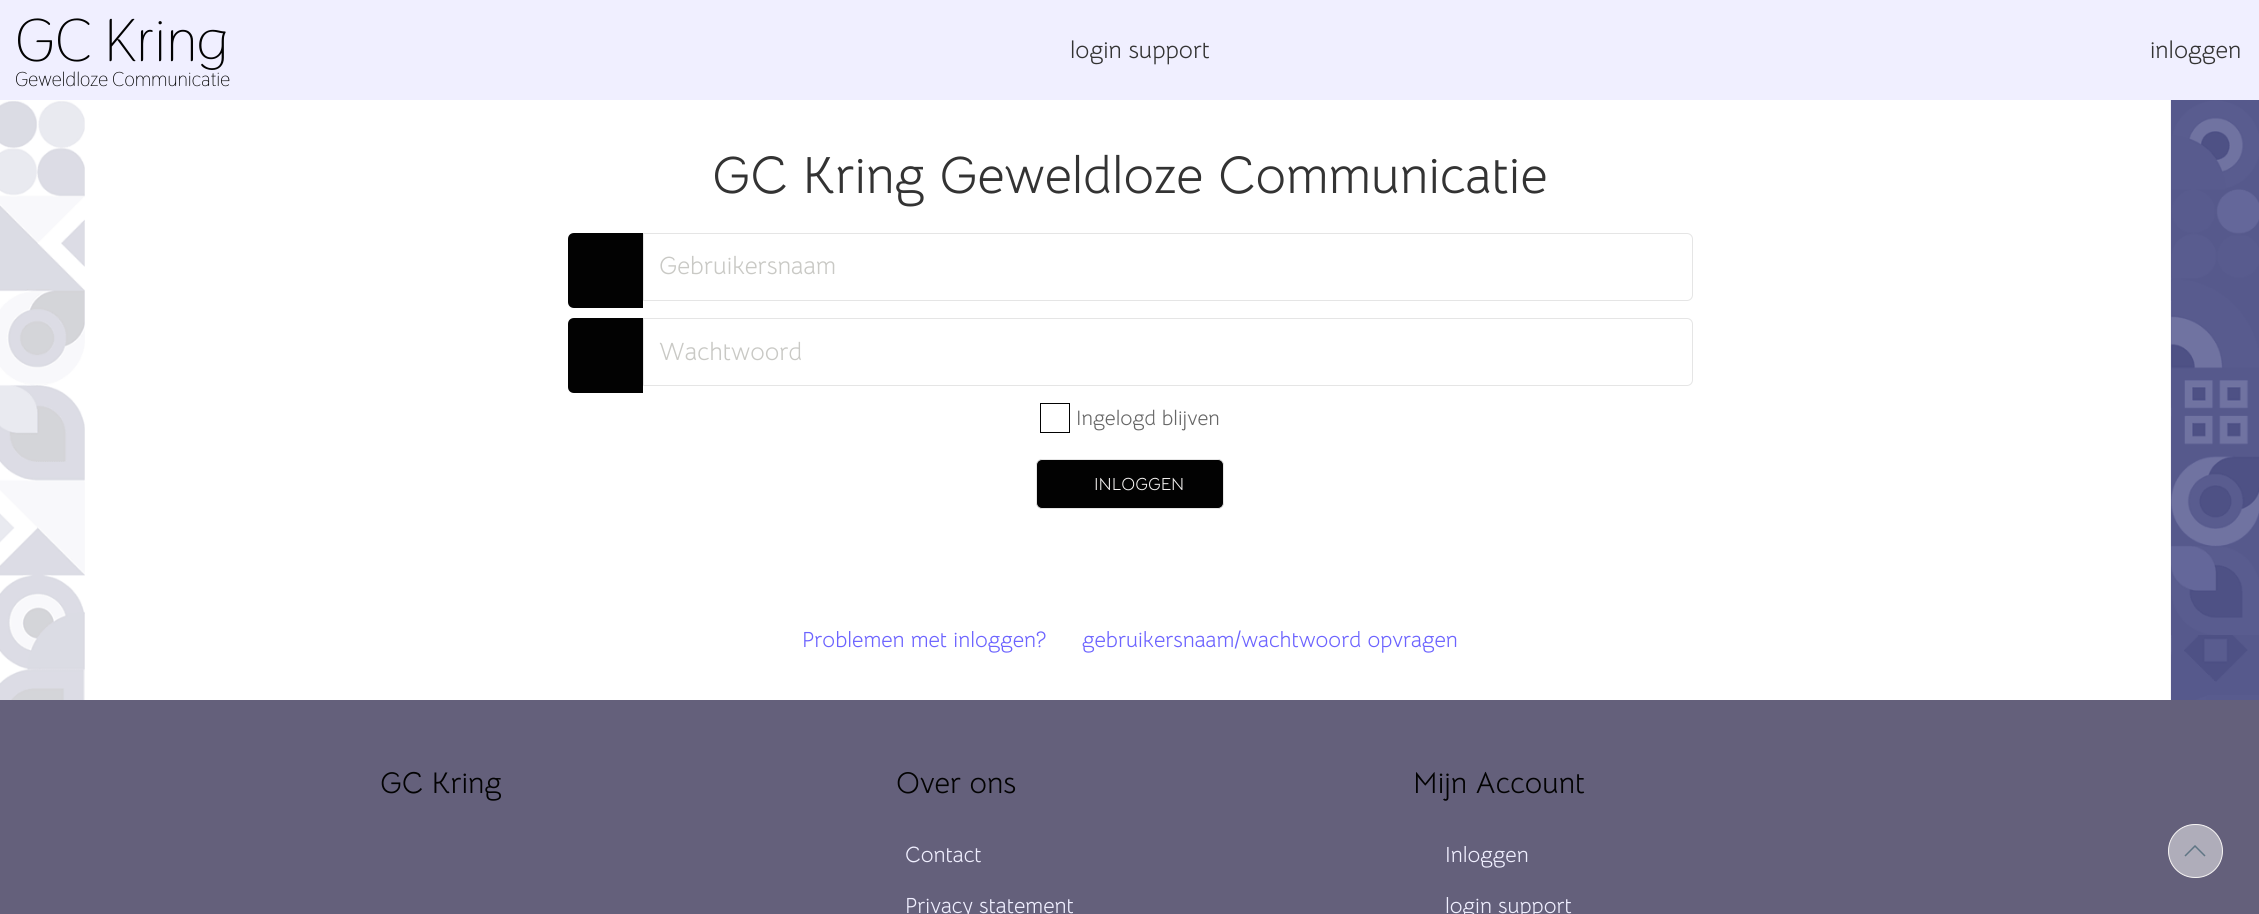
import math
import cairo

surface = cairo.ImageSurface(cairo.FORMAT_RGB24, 2259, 914)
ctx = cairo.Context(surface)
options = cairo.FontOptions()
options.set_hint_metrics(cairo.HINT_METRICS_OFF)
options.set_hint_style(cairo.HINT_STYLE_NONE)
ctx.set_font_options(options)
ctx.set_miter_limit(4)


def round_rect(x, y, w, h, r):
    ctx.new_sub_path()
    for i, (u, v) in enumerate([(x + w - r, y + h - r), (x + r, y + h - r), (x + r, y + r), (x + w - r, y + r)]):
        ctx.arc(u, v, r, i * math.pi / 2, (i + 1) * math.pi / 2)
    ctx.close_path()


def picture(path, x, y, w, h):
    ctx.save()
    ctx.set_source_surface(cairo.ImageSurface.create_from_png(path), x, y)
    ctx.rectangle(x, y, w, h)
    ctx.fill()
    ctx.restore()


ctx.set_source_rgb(0.392, 0.376, 0.482)
ctx.paint()
ctx.set_source_rgb(0.941, 0.937, 1)
ctx.rectangle(0, 0, 2259, 100)
ctx.fill()
ctx.select_font_face("Thasadith")
ctx.set_font_size(60)
ctx.set_source_rgb(0.008, 0.008, 0.008)
ctx.move_to(15, 61)
ctx.show_text("GC Kring")
ctx.set_font_size(20)
ctx.move_to(15, 86)
ctx.show_text("Geweldloze Communicatie")
ctx.select_font_face("Bellota Text")
ctx.set_font_size(24.25)
ctx.set_source_rgb(0.2, 0.2, 0.2)
ctx.move_to(1070, 58)
ctx.show_text("login support")
ctx.move_to(2150, 58)
ctx.show_text("inloggen")
picture("img1.png", 0, 100, 2259, 600)
ctx.set_font_size(52.5)
ctx.move_to(712, 193)
ctx.show_text("GC Kring Geweldloze Communicatie")
ctx.set_source_rgb(0.008, 0.008, 0.008)
ctx.new_path()
ctx.move_to(574, 233)
ctx.line_to(643, 233)
ctx.line_to(643, 308)
ctx.line_to(574, 308)
ctx.curve_to(570.5, 308, 568, 305.5, 568, 302)
ctx.line_to(568, 239)
ctx.curve_to(568, 235.5, 570.5, 233, 574, 233)
ctx.close_path()
ctx.fill()
ctx.new_path()
ctx.move_to(643.5, 233.5)
ctx.line_to(1687, 233.5)
ctx.curve_to(1690, 233.5, 1692.5, 236, 1692.5, 239)
ctx.line_to(1692.5, 295)
ctx.curve_to(1692.5, 298, 1690, 300.5, 1687, 300.5)
ctx.line_to(643.5, 300.5)
ctx.close_path()
ctx.set_source_rgb(0.898, 0.898, 0.898)
ctx.set_line_width(1)
ctx.stroke()
ctx.set_font_size(25)
ctx.set_source_rgb(0.788, 0.788, 0.773)
ctx.move_to(659, 274)
ctx.show_text("Gebruikersnaam")
ctx.set_source_rgb(0.008, 0.008, 0.008)
ctx.new_path()
ctx.move_to(574, 318)
ctx.line_to(643, 318)
ctx.line_to(643, 393)
ctx.line_to(574, 393)
ctx.curve_to(570.5, 393, 568, 390.5, 568, 387)
ctx.line_to(568, 324)
ctx.curve_to(568, 320.5, 570.5, 318, 574, 318)
ctx.close_path()
ctx.fill()
ctx.new_path()
ctx.move_to(643.5, 318.5)
ctx.line_to(1687, 318.5)
ctx.curve_to(1690, 318.5, 1692.5, 321, 1692.5, 324)
ctx.line_to(1692.5, 380)
ctx.curve_to(1692.5, 383, 1690, 385.5, 1687, 385.5)
ctx.line_to(643.5, 385.5)
ctx.close_path()
ctx.set_source_rgb(0.898, 0.898, 0.898)
ctx.stroke()
ctx.set_source_rgb(0.788, 0.788, 0.773)
ctx.move_to(659, 360)
ctx.show_text("Wachtwoord")
ctx.rectangle(1040.5, 403.5, 29, 29)
ctx.set_source_rgb(0.008, 0.008, 0.008)
ctx.stroke()
ctx.set_font_size(21)
ctx.set_source_rgb(0.4, 0.4, 0.4)
ctx.move_to(1076, 425)
ctx.show_text("Ingelogd blijven")
ctx.set_source_rgb(0.008, 0.008, 0.008)
round_rect(1036.5, 459.5, 187, 49, 5.5)
ctx.fill_preserve()
ctx.set_source_rgb(0.898, 0.898, 0.898)
ctx.stroke()
ctx.set_font_size(17.5)
ctx.set_source_rgb(0.961, 0.957, 0.953)
ctx.move_to(1094, 490)
ctx.show_text("INLOGGEN")
ctx.set_font_size(22)
ctx.set_source_rgb(0.424, 0.388, 1)
ctx.move_to(802, 647)
ctx.show_text("Problemen met inloggen?")
ctx.move_to(1082, 647)
ctx.show_text("gebruikersnaam/wachtwoord opvragen")
ctx.set_font_size(30)
ctx.set_source_rgb(0.008, 0.008, 0.008)
ctx.move_to(380, 793)
ctx.show_text("GC Kring")
ctx.move_to(896, 793)
ctx.show_text("Over ons")
ctx.set_font_size(22)
ctx.set_source_rgb(0.941, 0.937, 1)
ctx.move_to(905, 862)
ctx.show_text("Contact")
ctx.move_to(905, 913)
ctx.show_text("Privacy statement")
ctx.set_font_size(30)
ctx.set_source_rgb(0.008, 0.008, 0.008)
ctx.move_to(1413, 793)
ctx.show_text("Mijn Account")
ctx.set_font_size(22)
ctx.set_source_rgb(0.941, 0.937, 1)
ctx.move_to(1445, 862)
ctx.show_text("Inloggen")
ctx.move_to(1445, 913)
ctx.show_text("login support")
ctx.set_source_rgba(0.98, 0.98, 0.98, 0.5)
round_rect(2168.5, 824.5, 54, 53, 26.5)
ctx.fill_preserve()
ctx.set_source_rgb(0.961, 0.957, 0.953)
ctx.stroke()
ctx.new_path()
ctx.move_to(2185, 856)
ctx.line_to(2195, 846)
ctx.line_to(2205, 856)
ctx.set_source_rgb(0.373, 0.459, 0.518)
ctx.set_line_width(1.5)
ctx.stroke()
surface.write_to_png("page.png")
